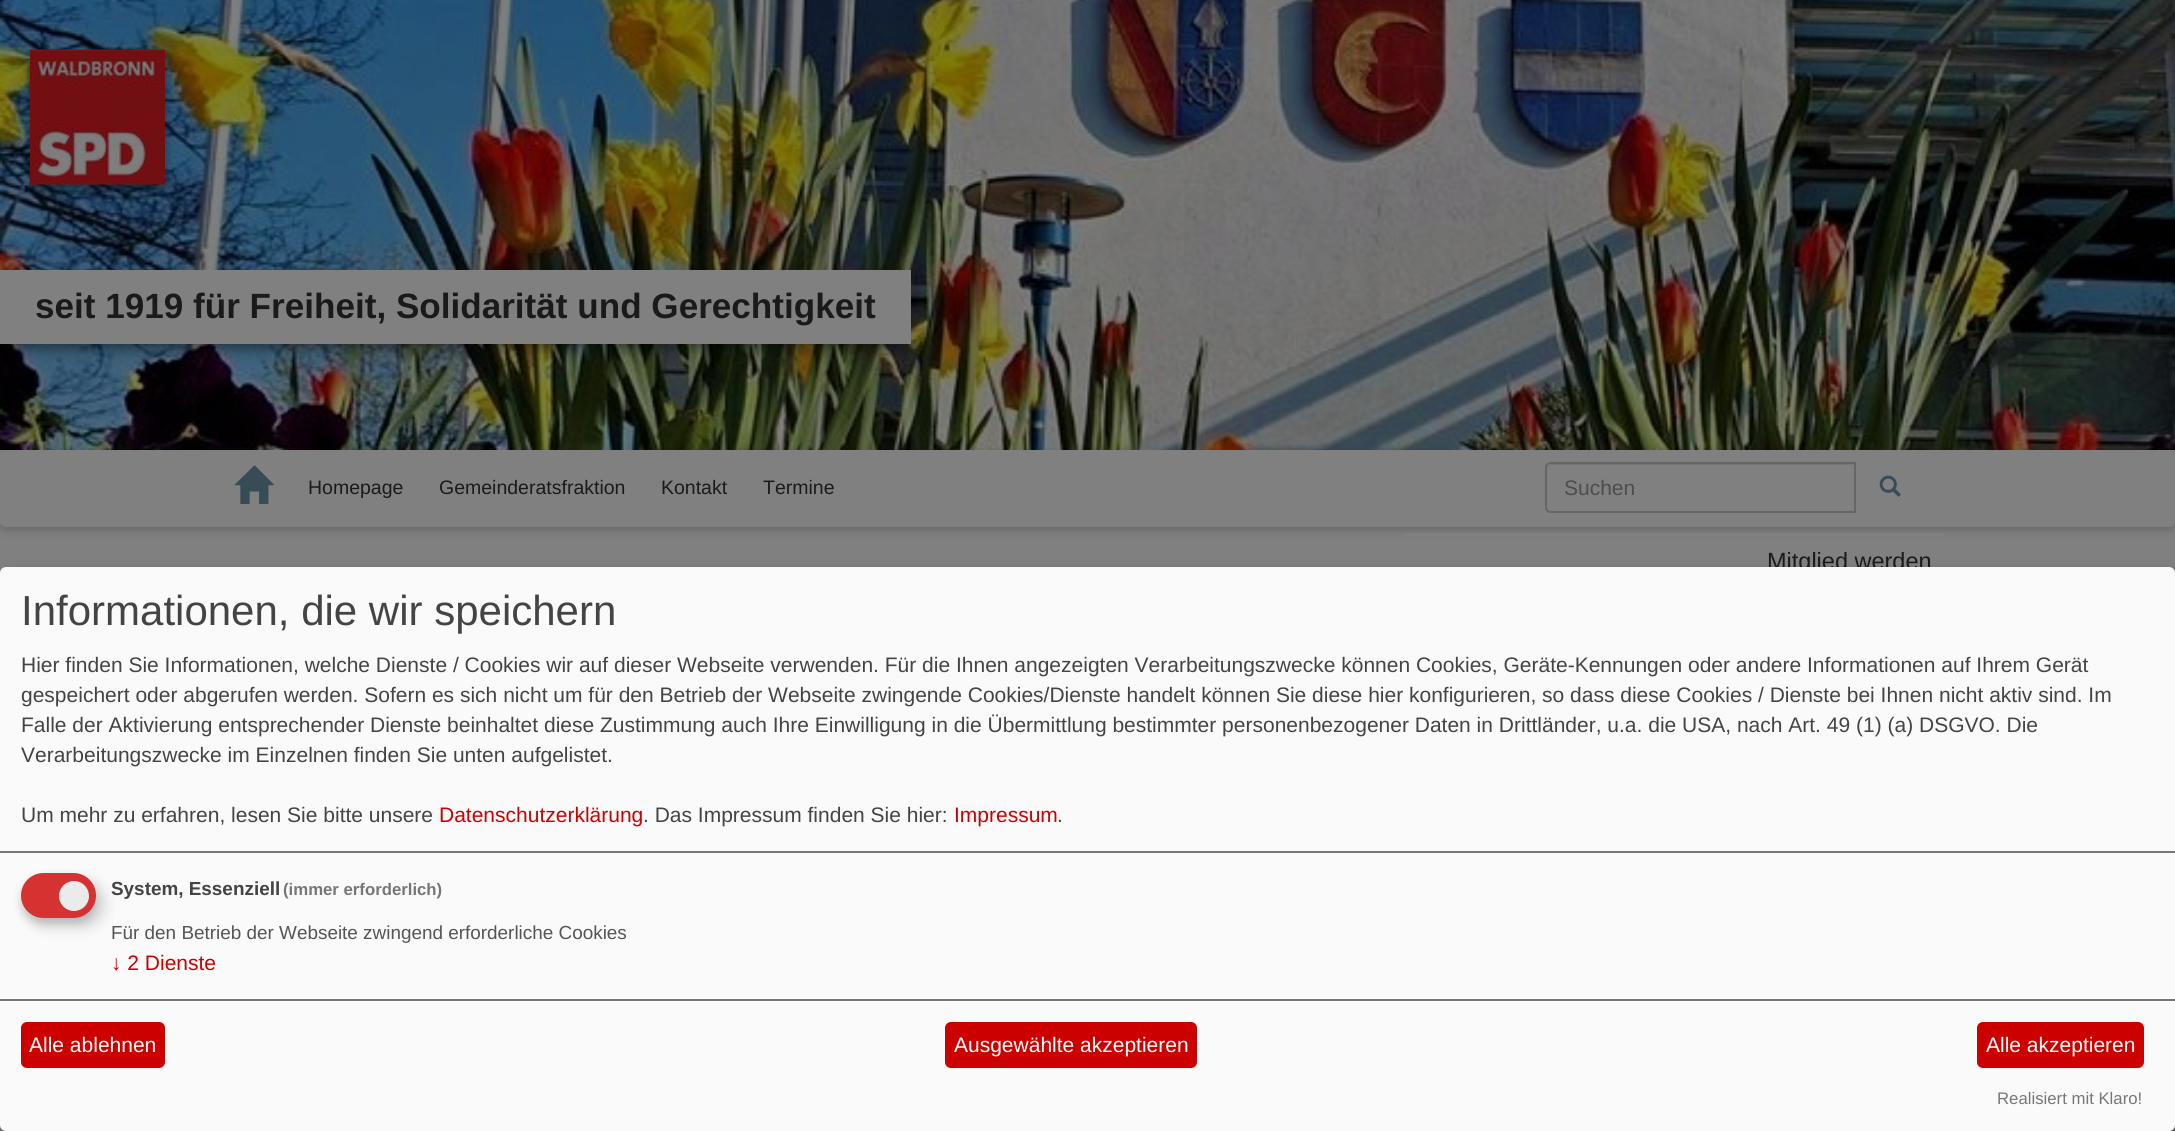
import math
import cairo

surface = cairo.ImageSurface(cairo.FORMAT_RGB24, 2175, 1131)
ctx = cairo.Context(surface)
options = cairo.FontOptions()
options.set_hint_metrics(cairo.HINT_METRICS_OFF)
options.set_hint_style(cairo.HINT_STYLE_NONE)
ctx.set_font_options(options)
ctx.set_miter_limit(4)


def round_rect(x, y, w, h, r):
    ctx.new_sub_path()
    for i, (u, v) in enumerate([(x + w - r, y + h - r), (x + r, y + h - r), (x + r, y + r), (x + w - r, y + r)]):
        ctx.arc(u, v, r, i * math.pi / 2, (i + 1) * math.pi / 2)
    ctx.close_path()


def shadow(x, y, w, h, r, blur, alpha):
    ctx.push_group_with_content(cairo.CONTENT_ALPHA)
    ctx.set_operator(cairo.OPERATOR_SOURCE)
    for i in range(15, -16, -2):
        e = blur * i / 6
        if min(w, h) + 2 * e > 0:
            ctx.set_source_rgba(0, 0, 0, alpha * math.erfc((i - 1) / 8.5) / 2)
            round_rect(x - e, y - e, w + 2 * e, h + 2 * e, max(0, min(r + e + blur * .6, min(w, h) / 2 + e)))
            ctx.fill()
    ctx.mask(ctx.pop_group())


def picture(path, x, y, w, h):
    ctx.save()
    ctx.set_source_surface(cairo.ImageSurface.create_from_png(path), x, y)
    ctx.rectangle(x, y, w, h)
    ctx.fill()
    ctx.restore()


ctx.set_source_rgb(0.502, 0.502, 0.502)
ctx.paint()
picture("img1.png", 0, 0, 2175, 450)
ctx.set_source_rgb(0, 0, 0)
shadow(32, 59, 132, 132, 0, 6, 0.4)
picture("img2.png", 30, 49, 135, 136)
shadow(2, 279, 907, 71, 0, 6, 0.4)
ctx.set_source_rgb(0.502, 0.502, 0.502)
ctx.rectangle(0, 270, 911, 74)
ctx.fill()
ctx.select_font_face("Liberation Sans", cairo.FONT_SLANT_NORMAL, cairo.FONT_WEIGHT_BOLD)
ctx.set_font_size(35.1)
ctx.set_source_rgb(0.102, 0.102, 0.102)
ctx.move_to(35, 318)
ctx.show_text("seit 1919 für Freiheit, Solidarität und Gerechtigkeit")
ctx.set_source_rgb(0, 0, 0)
shadow(0, 453, 2175, 77, 6, 4.5, 0.2)
ctx.set_source_rgb(0.502, 0.502, 0.502)
round_rect(0, 450, 2175, 77, 6)
ctx.fill()
picture("img3.png", 234, 465, 41, 39)
ctx.select_font_face("Liberation Sans")
ctx.set_font_size(19.5)
ctx.set_source_rgb(0.102, 0.102, 0.102)
ctx.move_to(308, 494)
ctx.show_text("Homepage")
ctx.move_to(439, 494)
ctx.show_text("Gemeinderatsfraktion")
ctx.move_to(661, 494)
ctx.show_text("Kontakt")
ctx.move_to(763, 494)
ctx.show_text("Termine")
ctx.set_source_rgb(0.463, 0.463, 0.463)
ctx.new_path()
ctx.move_to(1551, 465)
ctx.line_to(1854, 465)
ctx.line_to(1854, 464)
ctx.line_to(1551, 464)
ctx.line_to(1549, 465)
ctx.line_to(1548, 466)
ctx.close_path()
ctx.fill()
ctx.new_path()
ctx.move_to(1551, 463)
ctx.line_to(1855, 463)
ctx.line_to(1855, 512)
ctx.line_to(1551, 512)
ctx.curve_to(1548, 512, 1546, 510, 1546, 507)
ctx.line_to(1546, 468)
ctx.curve_to(1546, 465, 1548, 463, 1551, 463)
ctx.close_path()
ctx.set_source_rgb(0.4, 0.4, 0.4)
ctx.stroke()
ctx.set_font_size(21)
ctx.set_source_rgb(0.302, 0.302, 0.302)
ctx.move_to(1564, 495)
ctx.show_text("Suchen")
picture("img4.png", 1879, 475, 22, 22)
ctx.set_source_rgb(0.502, 0.502, 0.502)
ctx.rectangle(1403, 533, 540, 3)
ctx.fill()
ctx.set_font_size(23.5)
ctx.set_source_rgb(0.102, 0.102, 0.102)
ctx.move_to(1767, 569)
ctx.show_text("Mitglied werden")
ctx.set_source_rgb(0, 0, 0)
shadow(8, 575, 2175, 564, 6, 7.5, 0.19)
shadow(0, 573, 2175, 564, 6, 4.5, 0.2)
ctx.set_source_rgb(0.98, 0.98, 0.98)
round_rect(0, 567, 2175, 564, 6)
ctx.fill()
ctx.set_source_rgb(0.467, 0.467, 0.467)
ctx.rectangle(0, 851, 2175, 2)
ctx.fill()
ctx.set_font_size(42)
ctx.set_source_rgb(0.267, 0.267, 0.267)
ctx.move_to(21, 625)
ctx.show_text("Informationen, die wir speichern")
ctx.set_font_size(21)
ctx.move_to(21, 672)
ctx.show_text("Hier finden Sie Informationen, welche Dienste / Cookies wir auf dieser Webseite verwenden. Für die Ihnen angezeigten Verarbeitungszwecke können Cookies, Geräte-Kennungen oder andere Informationen auf Ihrem Gerät")
ctx.move_to(21, 702)
ctx.show_text("gespeichert oder abgerufen werden. Sofern es sich nicht um für den Betrieb der Webseite zwingende Cookies/Dienste handelt können Sie diese hier konfigurieren, so dass diese Cookies / Dienste bei Ihnen nicht aktiv sind. Im")
ctx.move_to(21, 732)
ctx.show_text("Falle der Aktivierung entsprechender Dienste beinhaltet diese Zustimmung auch Ihre Einwilligung in die Übermittlung bestimmter personenbezogener Daten in Drittländer, u.a. die USA, nach Art. 49 (1) (a) DSGVO. Die")
ctx.move_to(21, 762)
ctx.show_text("Verarbeitungszwecke im Einzelnen finden Sie unten aufgelistet.")
ctx.move_to(21, 822)
ctx.show_text("Um mehr zu erfahren, lesen Sie bitte unsere")
ctx.set_source_rgb(0.804, 0, 0)
ctx.move_to(439, 822)
ctx.show_text("Datenschutzerklärung")
ctx.set_source_rgb(0.267, 0.267, 0.267)
ctx.move_to(643, 822)
ctx.show_text(". Das Impressum finden Sie hier:")
ctx.set_source_rgb(0.804, 0, 0)
ctx.move_to(954, 822)
ctx.show_text("Impressum")
ctx.set_source_rgb(0.267, 0.267, 0.267)
ctx.move_to(1057, 822)
ctx.show_text(".")
ctx.set_source_rgb(0, 0, 0)
shadow(29, 881, 75, 45, 22.5, 7.5, 0.15)
ctx.set_source_rgb(0.196, 0.196, 0.196)
shadow(21, 879, 75, 45, 22.5, 4.5, 0.2)
ctx.set_source_rgb(0.839, 0.196, 0.196)
round_rect(21, 873, 75, 45, 22.5)
ctx.fill()
ctx.set_source_rgb(0.918, 0.918, 0.918)
ctx.arc(74, 896, 15, 0, 2 * math.pi)
ctx.fill()
ctx.select_font_face("Liberation Sans", cairo.FONT_SLANT_NORMAL, cairo.FONT_WEIGHT_BOLD)
ctx.set_font_size(18.9)
ctx.set_source_rgb(0.267, 0.267, 0.267)
ctx.move_to(111, 895)
ctx.show_text("System, Essenziell")
ctx.set_font_size(16.75)
ctx.set_source_rgb(0.467, 0.467, 0.467)
ctx.move_to(283, 895)
ctx.show_text("(immer erforderlich)")
ctx.select_font_face("Liberation Sans")
ctx.set_font_size(18.9)
ctx.set_source_rgb(0.333, 0.333, 0.333)
ctx.move_to(111, 939)
ctx.show_text("Für den Betrieb der Webseite zwingend erforderliche Cookies")
ctx.set_font_size(21)
ctx.set_source_rgb(0.804, 0, 0)
ctx.move_to(111, 970)
ctx.show_text("↓ 2 Dienste")
ctx.set_source_rgb(0.467, 0.467, 0.467)
ctx.rectangle(0, 999, 2175, 2)
ctx.fill()
ctx.set_source_rgb(0.804, 0, 0)
round_rect(21, 1022, 144, 46, 6)
ctx.fill()
ctx.set_source_rgb(1, 1, 1)
ctx.move_to(29, 1052)
ctx.show_text("Alle ablehnen")
ctx.set_source_rgb(0.804, 0, 0)
round_rect(945, 1022, 252, 46, 6)
ctx.fill()
ctx.set_source_rgb(1, 1, 1)
ctx.move_to(954, 1052)
ctx.show_text("Ausgewählte akzeptieren")
ctx.set_source_rgb(0.804, 0, 0)
round_rect(1977, 1022, 167, 46, 6)
ctx.fill()
ctx.set_source_rgb(1, 1, 1)
ctx.move_to(1986, 1052)
ctx.show_text("Alle akzeptieren")
ctx.set_font_size(16.75)
ctx.set_source_rgb(0.467, 0.467, 0.467)
ctx.move_to(1997, 1104)
ctx.show_text("Realisiert mit Klaro!")
surface.write_to_png("page.png")
